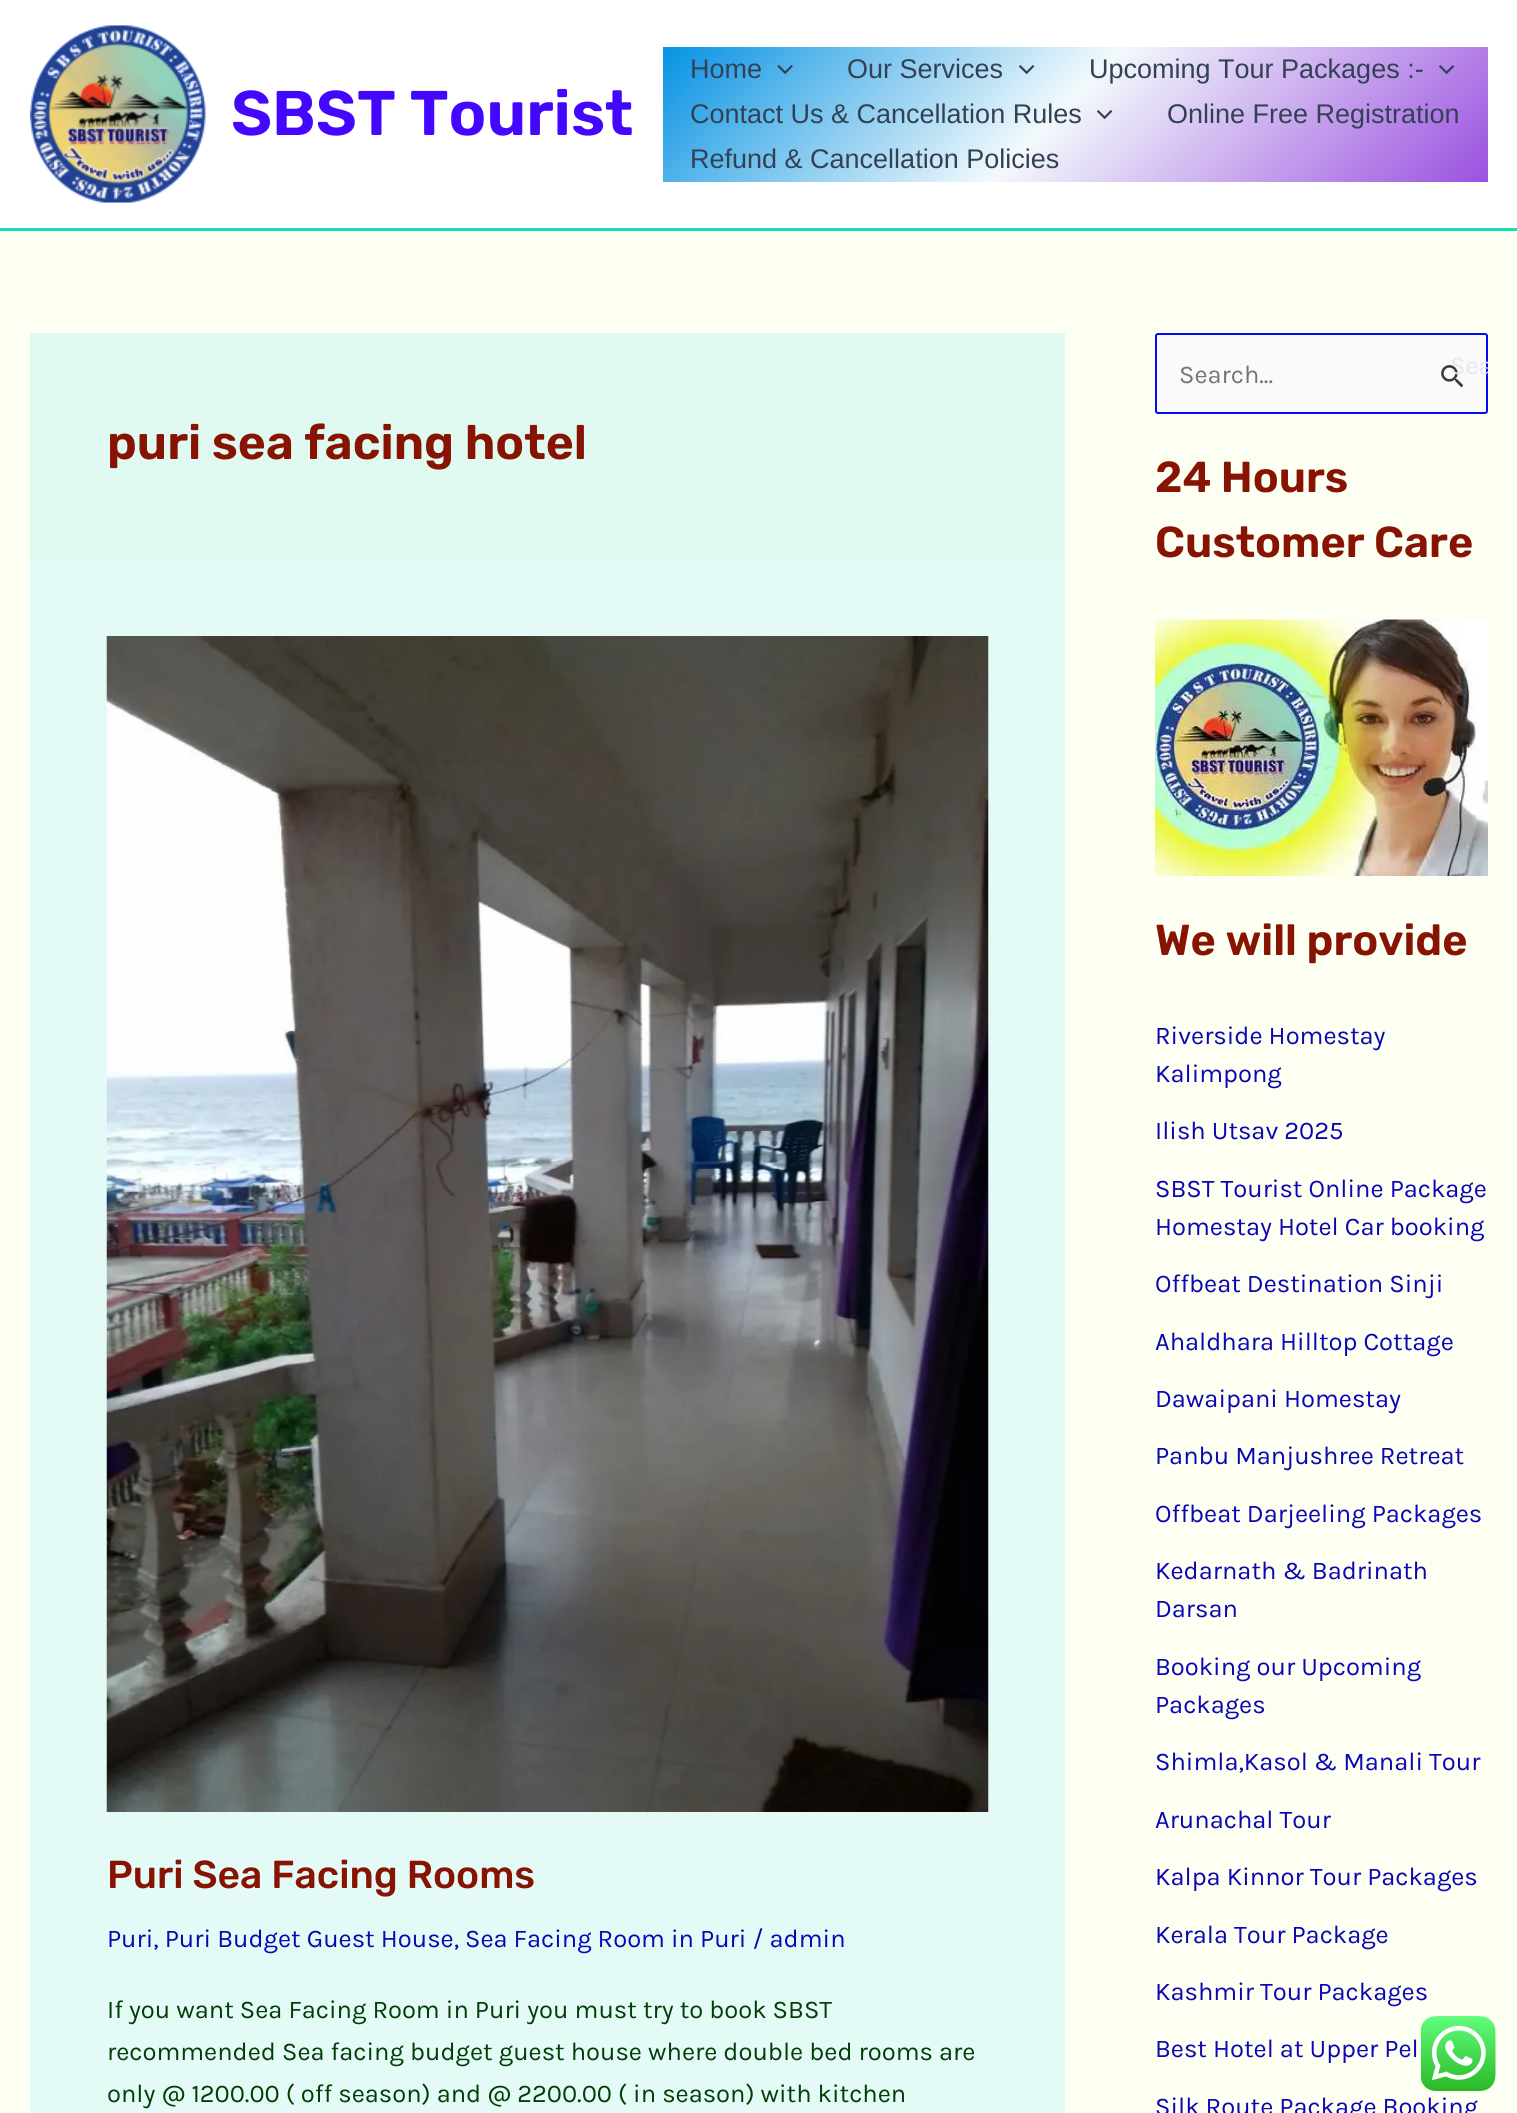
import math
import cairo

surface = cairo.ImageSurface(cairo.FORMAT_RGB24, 1517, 2113)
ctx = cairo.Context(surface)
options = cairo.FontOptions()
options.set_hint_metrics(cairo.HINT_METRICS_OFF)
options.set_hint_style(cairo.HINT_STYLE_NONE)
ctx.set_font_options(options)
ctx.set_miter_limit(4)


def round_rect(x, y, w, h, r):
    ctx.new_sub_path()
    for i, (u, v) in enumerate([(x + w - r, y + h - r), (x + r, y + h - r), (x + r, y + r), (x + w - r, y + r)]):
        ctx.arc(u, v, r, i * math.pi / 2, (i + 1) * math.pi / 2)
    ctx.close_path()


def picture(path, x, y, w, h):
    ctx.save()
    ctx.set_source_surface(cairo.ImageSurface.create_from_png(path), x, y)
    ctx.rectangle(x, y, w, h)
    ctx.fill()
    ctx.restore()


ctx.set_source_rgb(0.988, 1, 0.945)
ctx.paint()
ctx.set_source_rgb(1, 1, 1)
ctx.rectangle(0, 0, 1517, 228)
ctx.fill()
ctx.set_source_rgb(0.067, 0.89, 0.714)
ctx.rectangle(0, 228, 1517, 3)
ctx.fill()
picture("img1.png", 30, 25, 176, 178)
ctx.select_font_face("Rubik SemiBold")
ctx.set_font_size(63)
ctx.set_source_rgb(0.267, 0.031, 0.992)
ctx.move_to(231, 135)
ctx.show_text("SBST Tourist")
gradient = cairo.LinearGradient(836, -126, 1316, 354)
gradient.add_color_stop_rgba(0, 0.024, 0.576, 0.89, 1)
gradient.add_color_stop_rgba(0.48, 0.953, 0.976, 0.984, 1)
gradient.add_color_stop_rgba(1, 0.608, 0.318, 0.878, 1)
ctx.set_source(gradient)
ctx.rectangle(663, 47, 825, 135)
ctx.fill()
ctx.select_font_face("Liberation Sans")
ctx.set_font_size(27)
ctx.set_source_rgb(0.2, 0.255, 0.333)
ctx.move_to(690, 78)
ctx.show_text("Home")
picture("img2.png", 777, 65, 16, 10)
ctx.move_to(847, 78)
ctx.show_text("Our Services")
picture("img3.png", 1019, 65, 16, 10)
ctx.move_to(1089, 78)
ctx.show_text("Upcoming Tour Packages :-")
picture("img4.png", 1439, 65, 16, 10)
ctx.move_to(690, 123)
ctx.show_text("Contact Us & Cancellation Rules")
picture("img5.png", 1097, 110, 16, 10)
ctx.move_to(1167, 123)
ctx.show_text("Online Free Registration")
ctx.move_to(690, 168)
ctx.show_text("Refund & Cancellation Policies")
ctx.set_source_rgb(0.882, 0.98, 0.945)
ctx.rectangle(30, 333, 1035, 227)
ctx.fill()
ctx.select_font_face("Rubik SemiBold")
ctx.set_font_size(48)
ctx.set_source_rgb(0.529, 0.078, 0.012)
ctx.move_to(107, 459)
ctx.show_text("puri sea facing hotel")
ctx.set_source_rgb(0.894, 0.98, 0.961)
ctx.rectangle(30, 560, 1035, 1553)
ctx.fill()
picture("img6.png", 106, 636, 883, 1176)
ctx.select_font_face("Rubik Medium")
ctx.set_font_size(39)
ctx.set_source_rgb(0.529, 0.078, 0.012)
ctx.move_to(107, 1888)
ctx.show_text("Puri Sea Facing Rooms")
ctx.select_font_face("Karla")
ctx.set_font_size(25.5)
ctx.set_source_rgb(0.043, 0.024, 0.706)
ctx.move_to(107, 1947)
ctx.show_text("Puri, Puri Budget Guest House, Sea Facing Room in Puri / admin")
ctx.set_source_rgb(0.004, 0.243, 0.027)
ctx.move_to(107, 2018)
ctx.show_text("If you want Sea Facing Room in Puri you must try to book SBST")
ctx.move_to(107, 2060)
ctx.show_text("recommended Sea facing budget guest house where double bed rooms are")
ctx.move_to(107, 2102)
ctx.show_text("only @ 1200.00 ( off season) and @ 2200.00 ( in season) with kitchen")
ctx.set_source_rgb(0.98, 0.98, 0.98)
round_rect(1156, 334, 331, 79, 2)
ctx.fill_preserve()
ctx.set_source_rgb(0.008, 0.043, 0.969)
ctx.stroke()
ctx.set_source_rgb(0.459, 0.459, 0.459)
ctx.move_to(1179, 383)
ctx.show_text("Search...")
picture("img7.png", 1441, 365, 22, 23)
ctx.save()
round_rect(1421, 333, 67, 65, 3)
ctx.clip()
ctx.set_source_rgb(0.902, 0.902, 0.953)
ctx.move_to(1450, 374)
ctx.show_text("Sea")
ctx.restore()
ctx.select_font_face("Rubik SemiBold")
ctx.set_font_size(43.25)
ctx.set_source_rgb(0.529, 0.078, 0.012)
ctx.move_to(1155, 492)
ctx.show_text("24 Hours")
ctx.move_to(1155, 557)
ctx.show_text("Customer Care")
picture("img8.png", 1155, 619, 333, 257)
ctx.move_to(1155, 955)
ctx.show_text("We will provide")
ctx.select_font_face("Karla")
ctx.set_font_size(25.5)
ctx.set_source_rgb(0.043, 0.024, 0.706)
ctx.move_to(1155, 1044)
ctx.show_text("Riverside Homestay")
ctx.move_to(1155, 1082)
ctx.show_text("Kalimpong")
ctx.move_to(1155, 1139)
ctx.show_text("Ilish Utsav 2025")
ctx.move_to(1155, 1197)
ctx.show_text("SBST Tourist Online Package")
ctx.move_to(1155, 1235)
ctx.show_text("Homestay Hotel Car booking")
ctx.move_to(1155, 1292)
ctx.show_text("Offbeat Destination Sinji")
ctx.move_to(1155, 1350)
ctx.show_text("Ahaldhara Hilltop Cottage")
ctx.move_to(1155, 1407)
ctx.show_text("Dawaipani Homestay")
ctx.move_to(1155, 1464)
ctx.show_text("Panbu Manjushree Retreat")
ctx.move_to(1155, 1522)
ctx.show_text("Offbeat Darjeeling Packages")
ctx.move_to(1155, 1579)
ctx.show_text("Kedarnath & Badrinath")
ctx.move_to(1155, 1617)
ctx.show_text("Darsan")
ctx.move_to(1155, 1675)
ctx.show_text("Booking our Upcoming")
ctx.move_to(1155, 1713)
ctx.show_text("Packages")
ctx.move_to(1155, 1770)
ctx.show_text("Shimla,Kasol & Manali Tour")
ctx.move_to(1155, 1828)
ctx.show_text("Arunachal Tour")
ctx.move_to(1155, 1885)
ctx.show_text("Kalpa Kinnor Tour Packages")
ctx.move_to(1155, 1943)
ctx.show_text("Kerala Tour Package")
ctx.move_to(1155, 2000)
ctx.show_text("Kashmir Tour Packages")
ctx.move_to(1155, 2057)
ctx.show_text("Best Hotel at Upper Pel")
ctx.move_to(1155, 2115)
ctx.show_text("Silk Route Package Booking")
picture("img9.png", 1421, 2016, 75, 75)
surface.write_to_png("page.png")
